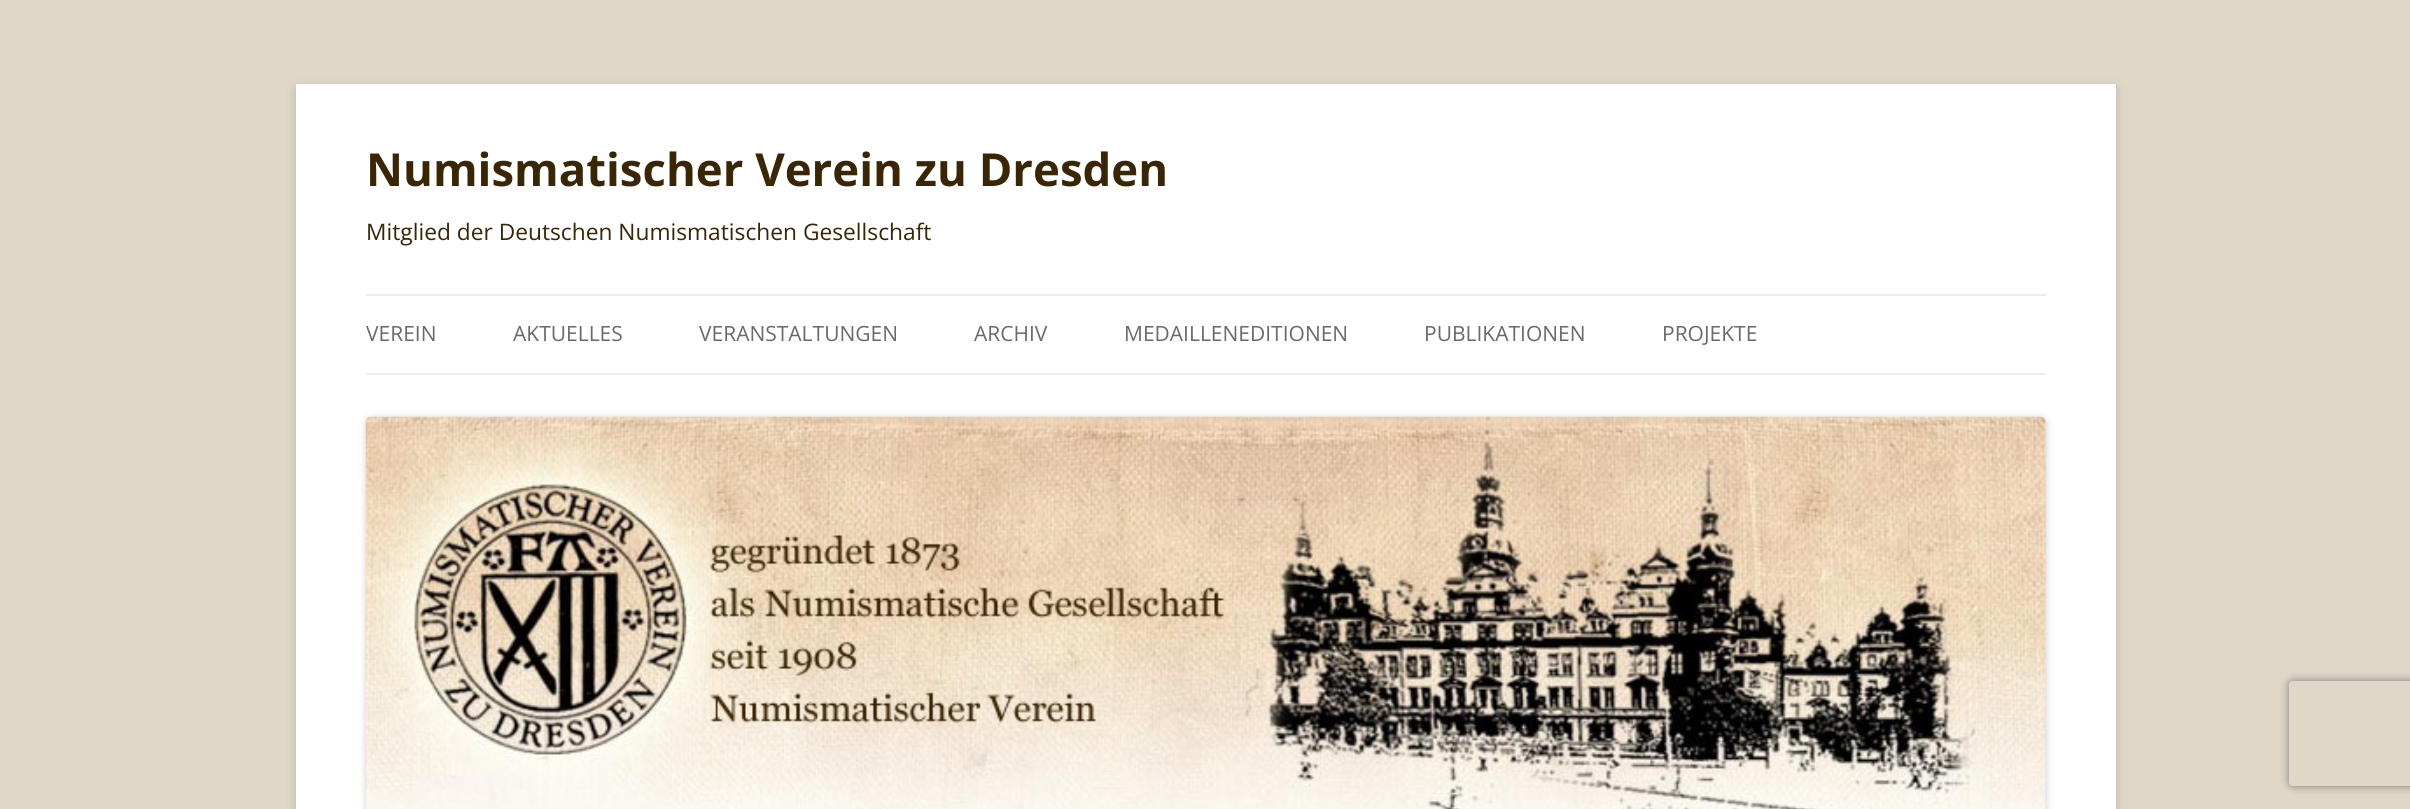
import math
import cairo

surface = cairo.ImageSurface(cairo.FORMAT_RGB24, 2410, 809)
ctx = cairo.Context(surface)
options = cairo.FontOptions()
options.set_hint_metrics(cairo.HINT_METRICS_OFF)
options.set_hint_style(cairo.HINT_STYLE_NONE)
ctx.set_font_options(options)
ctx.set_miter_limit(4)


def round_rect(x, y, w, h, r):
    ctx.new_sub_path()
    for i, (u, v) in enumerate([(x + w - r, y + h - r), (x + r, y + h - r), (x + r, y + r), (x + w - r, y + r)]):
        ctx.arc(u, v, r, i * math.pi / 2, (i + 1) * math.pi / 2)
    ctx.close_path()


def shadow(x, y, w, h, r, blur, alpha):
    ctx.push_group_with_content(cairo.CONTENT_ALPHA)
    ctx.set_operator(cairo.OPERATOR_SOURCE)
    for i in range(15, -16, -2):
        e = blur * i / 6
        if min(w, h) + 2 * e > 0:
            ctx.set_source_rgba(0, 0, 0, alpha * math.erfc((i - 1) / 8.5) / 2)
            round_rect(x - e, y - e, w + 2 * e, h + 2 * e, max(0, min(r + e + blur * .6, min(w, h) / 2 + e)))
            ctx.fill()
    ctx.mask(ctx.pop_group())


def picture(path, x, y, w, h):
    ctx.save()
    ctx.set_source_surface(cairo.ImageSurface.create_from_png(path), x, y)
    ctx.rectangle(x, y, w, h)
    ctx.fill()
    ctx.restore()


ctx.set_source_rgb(0.878, 0.843, 0.78)
ctx.paint()
ctx.set_source_rgb(0.392, 0.392, 0.392)
shadow(296, 88, 1820, 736, 0, 5, 0.3)
ctx.set_source_rgb(1, 1, 1)
ctx.rectangle(296, 84, 1820, 725)
ctx.fill()
ctx.select_font_face("Open Sans", cairo.FONT_SLANT_NORMAL, cairo.FONT_WEIGHT_BOLD)
ctx.set_font_size(45.5)
ctx.set_source_rgb(0.227, 0.149, 0.02)
ctx.move_to(366, 186)
ctx.show_text("Numismatischer Verein zu Dresden")
ctx.select_font_face("Open Sans")
ctx.set_font_size(22.75)
ctx.move_to(366, 240)
ctx.show_text("Mitglied der Deutschen Numismatischen Gesellschaft")
ctx.set_source_rgb(0.929, 0.929, 0.929)
ctx.rectangle(366, 294, 1680, 2)
ctx.fill()
ctx.rectangle(366, 373, 1680, 2)
ctx.fill()
ctx.set_font_size(21)
ctx.set_source_rgb(0.416, 0.416, 0.416)
ctx.move_to(366, 341)
ctx.show_text("VEREIN")
ctx.move_to(513, 341)
ctx.show_text("AKTUELLES")
ctx.move_to(699, 341)
ctx.show_text("VERANSTALTUNGEN")
ctx.move_to(974, 341)
ctx.show_text("ARCHIV")
ctx.move_to(1124, 341)
ctx.show_text("MEDAILLENEDITIONEN")
ctx.move_to(1424, 341)
ctx.show_text("PUBLIKATIONEN")
ctx.move_to(1662, 341)
ctx.show_text("PROJEKTE")
ctx.set_source_rgb(0, 0, 0)
shadow(366, 418, 1680, 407, 5, 3.5, 0.2)
picture("img1.png", 365, 416, 1681, 393)
ctx.save()
ctx.set_fill_rule(cairo.FILL_RULE_EVEN_ODD)
ctx.new_path()
ctx.move_to(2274, 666)
ctx.line_to(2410, 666)
ctx.line_to(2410, 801)
ctx.line_to(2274, 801)
ctx.close_path()
ctx.move_to(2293, 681)
ctx.line_to(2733, 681)
ctx.curve_to(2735, 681, 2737, 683, 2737, 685)
ctx.line_to(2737, 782)
ctx.curve_to(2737, 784, 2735, 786, 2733, 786)
ctx.line_to(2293, 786)
ctx.curve_to(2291, 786, 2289, 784, 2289, 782)
ctx.line_to(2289, 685)
ctx.curve_to(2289, 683, 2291, 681, 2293, 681)
ctx.close_path()
ctx.clip()
ctx.set_source_rgb(0.502, 0.502, 0.502)
shadow(2289, 681, 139, 105, 4, 4.5, 1)
ctx.restore()
surface.write_to_png("page.png")
